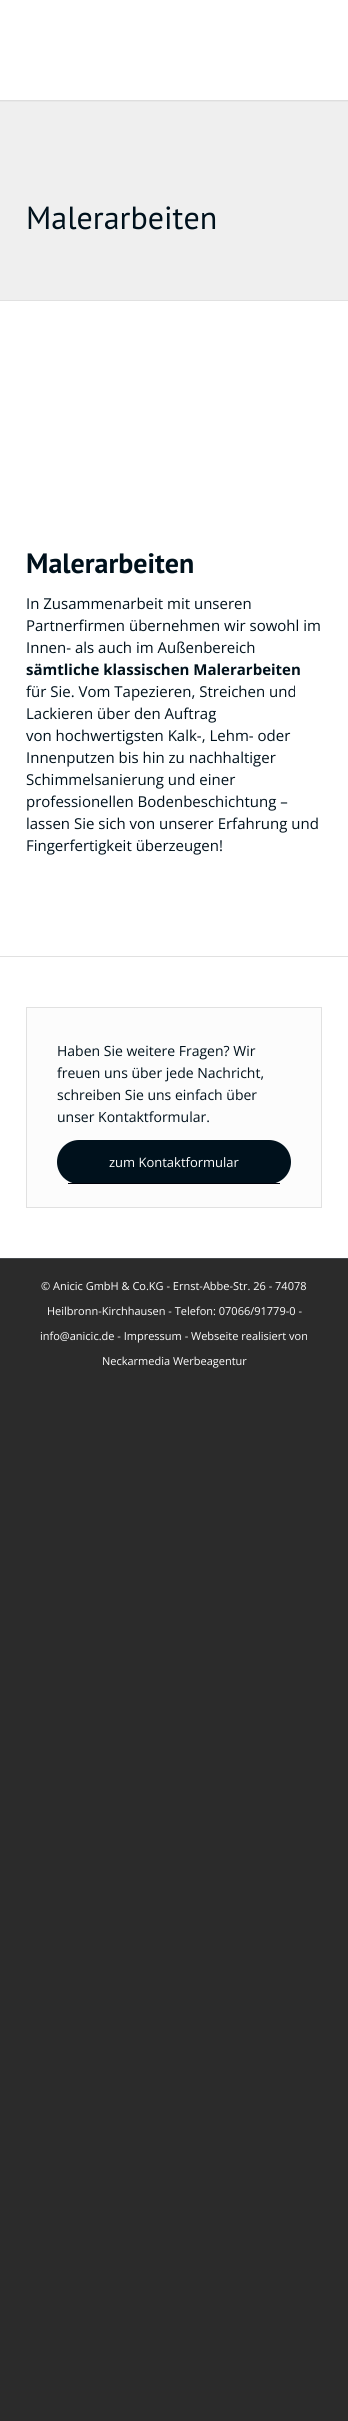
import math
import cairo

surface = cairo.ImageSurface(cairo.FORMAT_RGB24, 348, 2421)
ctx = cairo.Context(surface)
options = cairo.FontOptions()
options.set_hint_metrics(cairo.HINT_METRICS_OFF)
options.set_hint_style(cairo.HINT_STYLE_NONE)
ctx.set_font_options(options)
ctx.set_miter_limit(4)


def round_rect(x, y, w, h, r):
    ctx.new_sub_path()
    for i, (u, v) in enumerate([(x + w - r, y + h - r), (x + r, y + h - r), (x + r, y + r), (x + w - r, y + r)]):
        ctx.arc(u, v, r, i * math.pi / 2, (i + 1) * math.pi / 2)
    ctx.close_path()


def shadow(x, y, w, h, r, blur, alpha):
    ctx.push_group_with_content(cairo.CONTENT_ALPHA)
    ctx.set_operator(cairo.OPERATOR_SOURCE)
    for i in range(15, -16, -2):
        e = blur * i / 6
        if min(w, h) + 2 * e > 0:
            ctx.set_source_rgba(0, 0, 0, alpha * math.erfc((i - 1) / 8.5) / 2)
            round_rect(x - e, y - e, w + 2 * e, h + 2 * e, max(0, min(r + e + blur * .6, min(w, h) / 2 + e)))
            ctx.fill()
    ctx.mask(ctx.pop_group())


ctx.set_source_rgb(0.169, 0.169, 0.169)
ctx.paint()
ctx.set_source_rgb(1, 1, 1)
ctx.rectangle(0, 0, 348, 1258)
ctx.fill()
ctx.set_source_rgb(0.937, 0.937, 0.937)
ctx.rectangle(0, 100, 348, 200)
ctx.fill()
ctx.save()
ctx.rectangle(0, 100, 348, 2)
ctx.clip()
ctx.set_source_rgb(0, 0, 0)
shadow(-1, -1, 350, 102, 0, 1, 0.1)
ctx.restore()
ctx.select_font_face("PT Sans")
ctx.set_font_size(32)
ctx.set_source_rgb(0, 0.067, 0.11)
ctx.move_to(26, 229)
ctx.show_text("Malerarbeiten")
ctx.set_source_rgb(0.882, 0.882, 0.882)
ctx.rectangle(0, 300, 348, 1)
ctx.fill()
ctx.select_font_face("PT Sans", cairo.FONT_SLANT_NORMAL, cairo.FONT_WEIGHT_BOLD)
ctx.set_font_size(28)
ctx.set_source_rgb(0, 0.067, 0.11)
ctx.move_to(26, 573)
ctx.show_text("Malerarbeiten")
ctx.select_font_face("Open Sans")
ctx.set_font_size(15)
ctx.move_to(26, 609)
ctx.show_text("In Zusammenarbeit mit unseren")
ctx.move_to(26, 631)
ctx.show_text("Partnerfirmen übernehmen wir sowohl im")
ctx.move_to(26, 653)
ctx.show_text("Innen- als auch im Außenbereich")
ctx.select_font_face("Open Sans", cairo.FONT_SLANT_NORMAL, cairo.FONT_WEIGHT_BOLD)
ctx.move_to(26, 675)
ctx.show_text("sämtliche klassischen Malerarbeiten")
ctx.select_font_face("Open Sans")
ctx.move_to(26, 697)
ctx.show_text("für Sie. Vom Tapezieren, Streichen und")
ctx.move_to(26, 719)
ctx.show_text("Lackieren über den Auftrag")
ctx.move_to(26, 741)
ctx.show_text("von hochwertigsten Kalk-, Lehm- oder")
ctx.move_to(26, 763)
ctx.show_text("Innenputzen bis hin zu nachhaltiger")
ctx.move_to(26, 785)
ctx.show_text("Schimmelsanierung und einer")
ctx.move_to(26, 807)
ctx.show_text("professionellen Bodenbeschichtung –")
ctx.move_to(26, 829)
ctx.show_text("lassen Sie sich von unserer Erfahrung und")
ctx.move_to(26, 851)
ctx.show_text("Fingerfertigkeit überzeugen!")
ctx.set_source_rgb(0.882, 0.882, 0.882)
ctx.rectangle(0, 956, 348, 1)
ctx.fill()
ctx.set_source_rgb(0.988, 0.988, 0.988)
ctx.rectangle(26.5, 1007.5, 295, 200)
ctx.fill_preserve()
ctx.set_source_rgb(0.882, 0.882, 0.882)
ctx.set_line_width(1)
ctx.stroke()
ctx.set_font_size(14)
ctx.set_source_rgb(0, 0.067, 0.11)
ctx.move_to(57, 1056)
ctx.show_text("Haben Sie weitere Fragen? Wir")
ctx.move_to(57, 1078)
ctx.show_text("freuen uns über jede Nachricht,")
ctx.move_to(57, 1100)
ctx.show_text("schreiben Sie uns einfach über")
ctx.move_to(57, 1122)
ctx.show_text("unser Kontaktformular.")
round_rect(57, 1140, 234, 44, 22)
ctx.fill()
ctx.set_source_rgb(0, 0, 0.039)
ctx.rectangle(68, 1183, 212, 1)
ctx.fill()
ctx.set_font_size(13)
ctx.set_source_rgb(1, 1, 1)
ctx.move_to(109, 1167)
ctx.show_text("zum Kontaktformular")
ctx.set_source_rgb(0.271, 0.286, 0.302)
ctx.rectangle(0, 1258, 348, 1)
ctx.fill()
ctx.set_font_size(11)
ctx.set_source_rgb(1, 1, 1)
ctx.move_to(41, 1290)
ctx.show_text("© Anicic GmbH & Co.KG - Ernst-Abbe-Str. 26 - 74078")
ctx.move_to(47, 1315)
ctx.show_text("Heilbronn-Kirchhausen - Telefon: 07066/91779-0 -")
ctx.move_to(40, 1340)
ctx.show_text("info@anicic.de - Impressum - Webseite realisiert von")
ctx.move_to(102, 1365)
ctx.show_text("Neckarmedia Werbeagentur")
surface.write_to_png("page.png")
